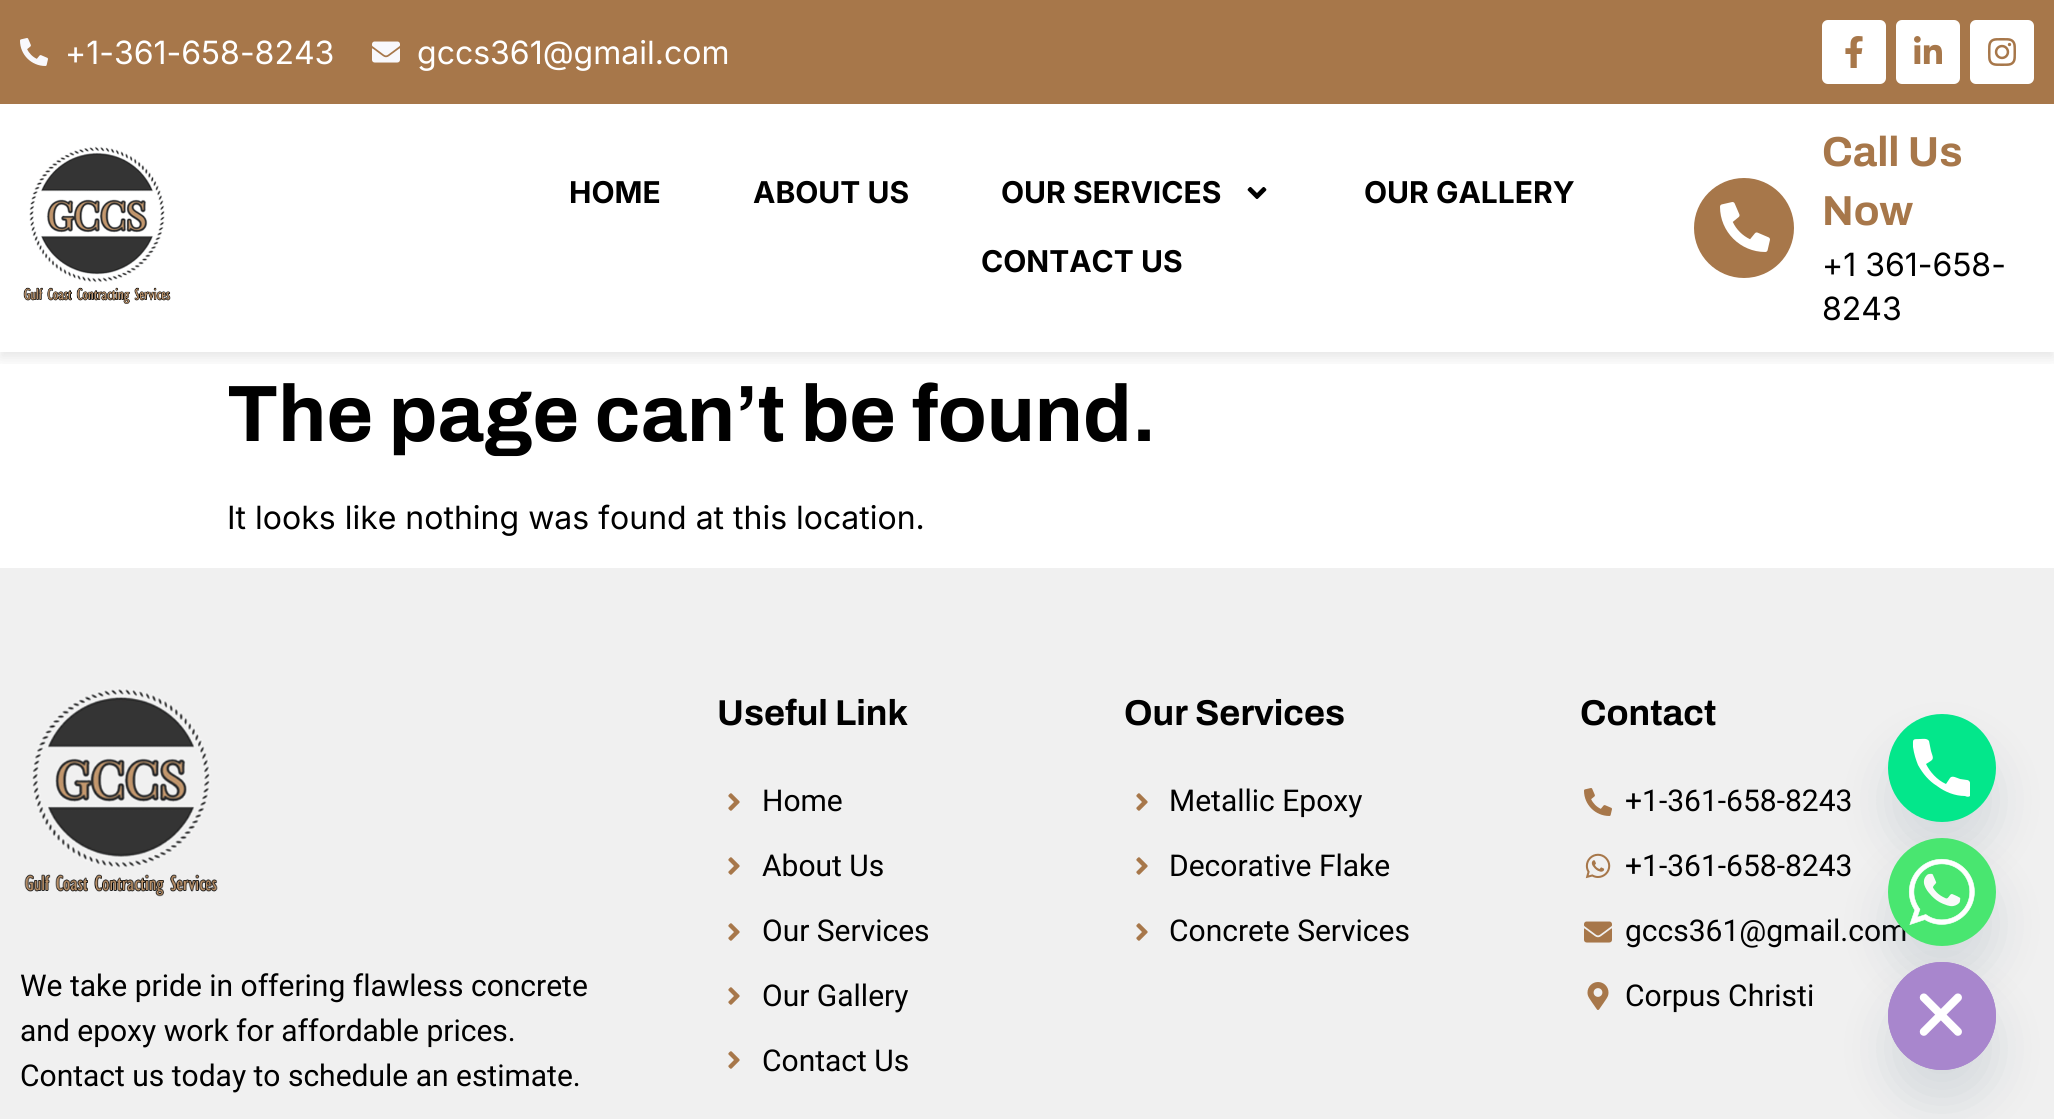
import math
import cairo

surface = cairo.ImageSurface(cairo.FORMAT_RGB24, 2054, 1119)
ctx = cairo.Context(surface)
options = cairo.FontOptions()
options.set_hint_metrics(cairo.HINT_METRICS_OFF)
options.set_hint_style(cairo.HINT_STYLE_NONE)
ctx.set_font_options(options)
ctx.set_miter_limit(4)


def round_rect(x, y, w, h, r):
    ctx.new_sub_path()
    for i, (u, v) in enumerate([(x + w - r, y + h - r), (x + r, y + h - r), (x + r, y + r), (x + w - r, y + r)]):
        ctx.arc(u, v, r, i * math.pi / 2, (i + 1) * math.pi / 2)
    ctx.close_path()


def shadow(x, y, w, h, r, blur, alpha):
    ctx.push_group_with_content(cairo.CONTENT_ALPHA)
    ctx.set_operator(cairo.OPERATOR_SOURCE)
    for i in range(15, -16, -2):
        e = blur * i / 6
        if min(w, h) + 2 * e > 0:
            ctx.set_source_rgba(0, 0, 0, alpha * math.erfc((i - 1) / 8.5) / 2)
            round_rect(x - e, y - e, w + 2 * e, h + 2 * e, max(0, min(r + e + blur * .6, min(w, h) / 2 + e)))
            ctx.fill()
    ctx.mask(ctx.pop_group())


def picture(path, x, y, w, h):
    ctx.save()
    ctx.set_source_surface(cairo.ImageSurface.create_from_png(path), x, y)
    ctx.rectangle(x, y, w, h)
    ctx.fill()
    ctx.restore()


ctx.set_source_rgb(1, 1, 1)
ctx.paint()
ctx.set_source_rgb(0.655, 0.467, 0.29)
ctx.rectangle(0, 0, 2054, 104)
ctx.fill()
picture("img1.png", 20, 38, 28, 28)
ctx.select_font_face("Inter")
ctx.set_font_size(32)
ctx.set_source_rgb(1, 1, 1)
ctx.move_to(65, 64)
ctx.show_text("+1-361-658-8243")
picture("img2.png", 372, 41, 28, 22)
ctx.move_to(417, 64)
ctx.show_text("gccs361@gmail.com")
round_rect(1822, 20, 64, 64, 6)
ctx.fill()
picture("img3.png", 1845, 36, 18, 32)
round_rect(1896, 20, 64, 64, 6)
ctx.fill()
picture("img4.png", 1914, 36, 28, 28)
round_rect(1970, 20, 64, 64, 6)
ctx.fill()
picture("img5.png", 1988, 38, 28, 28)
ctx.save()
ctx.rectangle(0, 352, 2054, 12)
ctx.clip()
ctx.set_source_rgb(0, 0, 0)
shadow(0, 110, 2054, 248, 0, 7, 0.1)
ctx.restore()
picture("img6.png", 23, 146, 148, 158)
ctx.select_font_face("Inter", cairo.FONT_SLANT_NORMAL, cairo.FONT_WEIGHT_BOLD)
ctx.set_font_size(30)
ctx.set_source_rgb(0, 0, 0)
ctx.move_to(569, 203)
ctx.show_text("HOME")
ctx.move_to(753, 203)
ctx.show_text("ABOUT US")
ctx.move_to(1001, 203)
ctx.show_text("OUR SERVICES")
picture("img7.png", 1247, 187, 20, 12)
ctx.move_to(1364, 203)
ctx.show_text("OUR GALLERY")
ctx.move_to(981, 272)
ctx.show_text("CONTACT US")
ctx.set_source_rgb(0.655, 0.467, 0.29)
ctx.new_path()
ctx.arc(1744, 228, 50, 0, 2 * math.pi)
ctx.fill()
picture("img8.png", 1720, 202, 50, 50)
ctx.select_font_face("Archivo", cairo.FONT_SLANT_NORMAL, cairo.FONT_WEIGHT_BOLD)
ctx.set_font_size(42)
ctx.move_to(1822, 166)
ctx.show_text("Call Us")
ctx.move_to(1822, 225)
ctx.show_text("Now")
ctx.select_font_face("Inter")
ctx.set_font_size(32)
ctx.set_source_rgb(0, 0, 0)
ctx.move_to(1822, 276)
ctx.show_text("+1 361-658-")
ctx.move_to(1822, 320)
ctx.show_text("8243")
ctx.select_font_face("Archivo", cairo.FONT_SLANT_NORMAL, cairo.FONT_WEIGHT_BOLD)
ctx.set_font_size(80)
ctx.move_to(227, 441)
ctx.show_text("The page can’t be found.")
ctx.select_font_face("Inter")
ctx.set_font_size(32)
ctx.move_to(227, 529)
ctx.show_text("It looks like nothing was found at this location.")
ctx.set_source_rgb(0.941, 0.941, 0.941)
ctx.rectangle(0, 568, 2054, 551)
ctx.fill()
ctx.select_font_face("Archivo", cairo.FONT_SLANT_NORMAL, cairo.FONT_WEIGHT_BOLD)
ctx.set_font_size(36)
ctx.set_source_rgb(0, 0, 0)
ctx.move_to(717, 725)
ctx.show_text("Useful Link")
picture("img9.png", 728, 793, 12, 18)
ctx.select_font_face("Roboto")
ctx.set_font_size(30)
ctx.move_to(762, 811)
ctx.show_text("Home")
picture("img9.png", 728, 857, 12, 18)
ctx.move_to(762, 876)
ctx.show_text("About Us")
picture("img9.png", 728, 923, 12, 18)
ctx.move_to(762, 941)
ctx.show_text("Our Services")
picture("img9.png", 728, 987, 12, 18)
ctx.move_to(762, 1006)
ctx.show_text("Our Gallery")
picture("img9.png", 728, 1051, 12, 18)
ctx.move_to(762, 1071)
ctx.show_text("Contact Us")
ctx.select_font_face("Archivo", cairo.FONT_SLANT_NORMAL, cairo.FONT_WEIGHT_BOLD)
ctx.set_font_size(36)
ctx.move_to(1124, 725)
ctx.show_text("Our Services")
picture("img9.png", 1136, 793, 12, 18)
ctx.select_font_face("Roboto")
ctx.set_font_size(30)
ctx.move_to(1169, 811)
ctx.show_text("Metallic Epoxy")
picture("img9.png", 1136, 857, 12, 18)
ctx.move_to(1169, 876)
ctx.show_text("Decorative Flake")
picture("img9.png", 1136, 923, 12, 18)
ctx.move_to(1169, 941)
ctx.show_text("Concrete Services")
ctx.select_font_face("Archivo", cairo.FONT_SLANT_NORMAL, cairo.FONT_WEIGHT_BOLD)
ctx.set_font_size(36)
ctx.move_to(1580, 725)
ctx.show_text("Contact")
picture("img10.png", 1584, 788, 28, 28)
ctx.select_font_face("Roboto")
ctx.set_font_size(30)
ctx.move_to(1625, 811)
ctx.show_text("+1-361-658-8243")
picture("img11.png", 1585, 853, 26, 26)
ctx.move_to(1625, 876)
ctx.show_text("+1-361-658-8243")
picture("img12.png", 1584, 921, 28, 22)
ctx.move_to(1625, 941)
ctx.show_text("gccs361@gmail.com")
picture("img13.png", 1587, 982, 22, 28)
ctx.move_to(1625, 1006)
ctx.show_text("Corpus Christi")
picture("img14.png", 24, 688, 194, 209)
ctx.move_to(20, 996)
ctx.show_text("We take pride in offering flawless concrete")
ctx.move_to(20, 1041)
ctx.show_text("and epoxy work for affordable prices.")
ctx.move_to(20, 1086)
ctx.show_text("Contact us today to schedule an estimate.")
ctx.set_source_rgb(0.286, 0.408, 0.494)
shadow(1888, 746, 108, 108, 54, 24, 0.16)
ctx.set_source_rgb(0.012, 0.906, 0.545)
ctx.arc(1942, 768, 54, 0, 2 * math.pi)
ctx.fill()
ctx.set_source_rgb(1, 1, 1)
ctx.new_path()
ctx.move_to(1967, 780)
ctx.line_to(1960, 779)
ctx.curve_to(1957, 778, 1952, 775, 1950, 778)
ctx.line_to(1946, 784)
ctx.curve_to(1937, 780, 1930, 772, 1926, 764)
ctx.curve_to(1934, 759, 1934, 760, 1931, 751)
ctx.line_to(1929, 741)
ctx.curve_to(1927, 738, 1923, 739, 1920, 739)
ctx.curve_to(1912, 739, 1913, 739, 1913, 747)
ctx.curve_to(1914, 754, 1916, 760, 1918, 765)
ctx.curve_to(1923, 774, 1929, 781, 1937, 786)
ctx.curve_to(1945, 792, 1955, 796, 1965, 796)
ctx.curve_to(1967, 797, 1969, 797, 1970, 796)
ctx.line_to(1970, 783)
ctx.curve_to(1970, 781, 1968, 780, 1967, 780)
ctx.close_path()
ctx.fill()
ctx.set_source_rgb(0.286, 0.408, 0.494)
shadow(1888, 870, 108, 108, 54, 24, 0.16)
picture("img15.png", 1888, 838, 108, 108)
shadow(1888, 994, 108, 108, 54, 24, 0.16)
ctx.set_source_rgb(0.659, 0.525, 0.804)
ctx.new_path()
ctx.move_to(1942, 1070)
ctx.curve_to(1912, 1070, 1888, 1046, 1888, 1016)
ctx.curve_to(1888, 986, 1912, 962, 1942, 962)
ctx.curve_to(1972, 962, 1996, 986, 1996, 1016)
ctx.curve_to(1996, 1046, 1972, 1070, 1942, 1070)
ctx.close_path()
ctx.fill()
picture("img16.png", 1888, 962, 108, 108)
surface.write_to_png("page.png")
